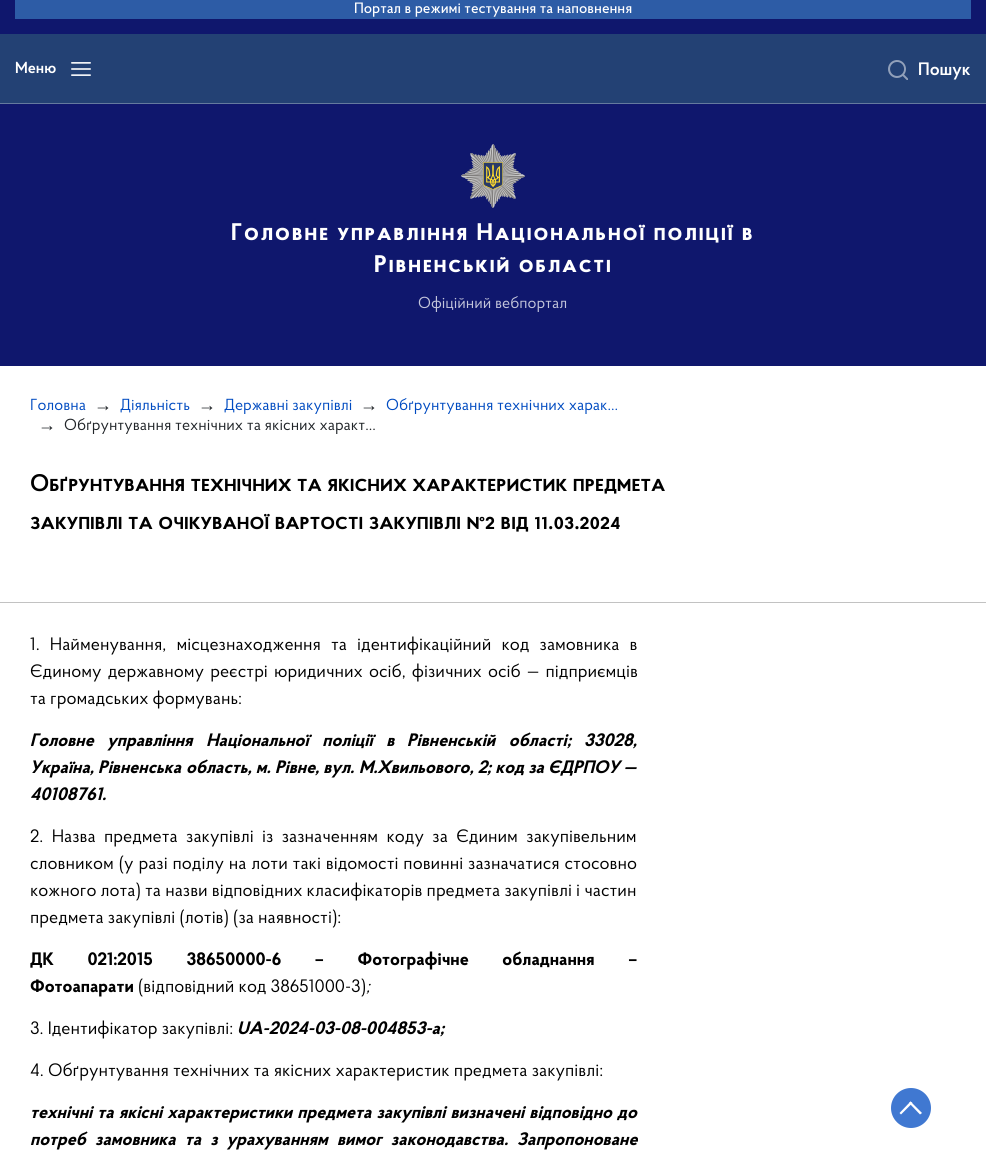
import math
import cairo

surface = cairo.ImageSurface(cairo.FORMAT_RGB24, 986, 1153)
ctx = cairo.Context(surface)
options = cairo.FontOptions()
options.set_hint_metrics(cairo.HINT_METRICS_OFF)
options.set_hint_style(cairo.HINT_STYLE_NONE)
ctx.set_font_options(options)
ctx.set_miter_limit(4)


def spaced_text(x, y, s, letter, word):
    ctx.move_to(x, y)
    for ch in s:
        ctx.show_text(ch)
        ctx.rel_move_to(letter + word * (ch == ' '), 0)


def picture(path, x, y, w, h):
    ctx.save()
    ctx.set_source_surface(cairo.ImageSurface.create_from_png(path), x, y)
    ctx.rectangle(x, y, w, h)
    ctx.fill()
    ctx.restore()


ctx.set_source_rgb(1, 1, 1)
ctx.paint()
ctx.set_source_rgb(0.059, 0.09, 0.427)
ctx.rectangle(0, 0, 986, 366)
ctx.fill()
ctx.set_source_rgb(0.176, 0.361, 0.651)
ctx.rectangle(15, 0, 956, 19)
ctx.fill()
ctx.select_font_face("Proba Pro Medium")
ctx.set_font_size(15)
ctx.set_source_rgb(1, 1, 1)
ctx.move_to(354, 13)
ctx.show_text("Портал в режимі тестування та наповнення")
ctx.set_source_rgb(0.137, 0.255, 0.455)
ctx.rectangle(0, 34, 986, 69)
ctx.fill()
ctx.set_source_rgb(0.396, 0.478, 0.62)
ctx.rectangle(0, 103, 986, 1)
ctx.fill()
ctx.select_font_face("Proba Pro SemiBold")
ctx.set_font_size(16)
ctx.set_source_rgb(1, 1, 1)
ctx.move_to(15, 73)
ctx.show_text("Меню")
picture("img1.png", 71, 62, 20, 14)
picture("img2.png", 461, 144, 64, 64)
ctx.select_font_face("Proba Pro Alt", cairo.FONT_SLANT_NORMAL, cairo.FONT_WEIGHT_BOLD)
ctx.set_font_size(24)
spaced_text(231, 240, "Головне управління Національної поліції в", 2, 0)
spaced_text(374, 272, "Рівненській області", 2, 0)
ctx.select_font_face("Proba Pro")
ctx.set_font_size(16)
ctx.set_source_rgb(0.765, 0.773, 0.859)
ctx.move_to(418, 308)
ctx.show_text("Офіційний вебпортал")
picture("img3.png", 888, 60, 20, 20)
ctx.select_font_face("Proba Pro SemiBold")
ctx.set_font_size(18)
ctx.set_source_rgb(1, 1, 1)
ctx.move_to(918, 75)
ctx.show_text("Пошук")
ctx.select_font_face("Proba Pro")
ctx.set_font_size(16)
ctx.set_source_rgb(0, 0.294, 0.757)
ctx.move_to(30, 410)
ctx.show_text("Головна")
ctx.select_font_face("Liberation Sans")
ctx.set_font_size(18)
ctx.set_source_rgb(0.129, 0.145, 0.161)
ctx.move_to(94, 411)
ctx.show_text("→")
ctx.select_font_face("Proba Pro")
ctx.set_font_size(16)
ctx.set_source_rgb(0, 0.294, 0.757)
ctx.move_to(120, 410)
ctx.show_text("Діяльність")
ctx.select_font_face("Liberation Sans")
ctx.set_font_size(18)
ctx.set_source_rgb(0.129, 0.145, 0.161)
ctx.move_to(198, 411)
ctx.show_text("→")
ctx.select_font_face("Proba Pro")
ctx.set_font_size(16)
ctx.set_source_rgb(0, 0.294, 0.757)
ctx.move_to(224, 410)
ctx.show_text("Державні закупівлі")
ctx.select_font_face("Liberation Sans")
ctx.set_font_size(18)
ctx.set_source_rgb(0.129, 0.145, 0.161)
ctx.move_to(360, 411)
ctx.show_text("→")
ctx.select_font_face("Proba Pro")
ctx.set_font_size(16)
ctx.set_source_rgb(0, 0.294, 0.757)
ctx.move_to(386, 410)
ctx.show_text("Обґрунтування технічних харак…")
ctx.select_font_face("Liberation Sans")
ctx.set_font_size(18)
ctx.set_source_rgb(0.129, 0.145, 0.161)
ctx.move_to(38, 431)
ctx.show_text("→")
ctx.select_font_face("Proba Pro")
ctx.set_font_size(16)
ctx.move_to(64, 430)
ctx.show_text("Обґрунтування технічних та якісних характ…")
ctx.select_font_face("Proba Pro Alt SemiBold")
ctx.set_font_size(24)
ctx.set_source_rgb(0, 0, 0)
ctx.move_to(30, 491)
ctx.show_text("Обґрунтування технічних та якісних характеристик предмета")
ctx.move_to(30, 529)
ctx.show_text("закупівлі та очікуваної вартості закупівлі №2 від 11.03.2024")
ctx.set_source_rgb(0.761, 0.761, 0.761)
ctx.rectangle(0, 602, 986, 1)
ctx.fill()
ctx.select_font_face("Proba Pro")
ctx.set_font_size(18)
ctx.set_source_rgb(0, 0, 0)
spaced_text(30, 650, "1. Найменування, місцезнаходження та ідентифікаційний код замовника в", 0, 6)
spaced_text(30, 677, "Єдиному державному реєстрі юридичних осіб, фізичних осіб — підприємців", 0, 2)
ctx.move_to(30, 704)
ctx.show_text("та громадських формувань:")
ctx.select_font_face("Proba Pro", cairo.FONT_SLANT_ITALIC, cairo.FONT_WEIGHT_BOLD)
spaced_text(30, 746, "Головне управління Національної поліції в", 0, 9.5)
spaced_text(407, 746, "Рівненській області", 0, 9.5)
ctx.move_to(567, 746)
ctx.show_text(";")
ctx.move_to(584, 746)
ctx.show_text("33028,")
ctx.move_to(30, 773)
ctx.show_text("Україна, Рівненська")
ctx.move_to(186, 773)
ctx.show_text("область, м.")
ctx.move_to(275, 773)
ctx.show_text("Рівне")
ctx.move_to(315, 773)
ctx.show_text(", вул.")
ctx.move_to(359, 773)
ctx.show_text("М.Хвильового, 2")
ctx.move_to(487, 773)
ctx.show_text("; код за ЄДРПОУ —")
ctx.move_to(30, 800)
ctx.show_text("40108761.")
ctx.select_font_face("Proba Pro")
spaced_text(30, 842, "2. Назва предмета закупівлі із зазначенням коду за Єдиним закупівельним", 0, 4.25)
spaced_text(30, 869, "словником (у разі поділу на лоти такі відомості повинні зазначатися стосовно", 0, 0.75)
ctx.move_to(30, 896)
ctx.show_text("кожного лота) та назви відповідних класифікаторів предмета закупівлі і частин")
ctx.move_to(30, 923)
ctx.show_text("предмета закупівлі (лотів) (за наявності):")
ctx.select_font_face("Proba Pro", cairo.FONT_SLANT_NORMAL, cairo.FONT_WEIGHT_BOLD)
spaced_text(30, 965, "ДК 021:2015 38650000-6 – Фотографічне обладнання –", 0, 29.5)
ctx.move_to(30, 992)
ctx.show_text("Фотоапарати")
ctx.select_font_face("Proba Pro")
ctx.move_to(138, 992)
ctx.show_text("(відповідний код 38651000-3)")
ctx.select_font_face("Proba Pro", cairo.FONT_SLANT_ITALIC)
ctx.move_to(366, 992)
ctx.show_text(";")
ctx.select_font_face("Proba Pro")
ctx.move_to(30, 1034)
ctx.show_text("3. Ідентифікатор закупівлі:")
ctx.select_font_face("Proba Pro", cairo.FONT_SLANT_ITALIC, cairo.FONT_WEIGHT_BOLD)
ctx.move_to(237, 1034)
ctx.show_text("UA-2024-03-08-004853-a;")
ctx.select_font_face("Proba Pro")
ctx.move_to(30, 1076)
ctx.show_text("4. Обґрунтування технічних та якісних характеристик предмета закупівлі:")
ctx.select_font_face("Proba Pro", cairo.FONT_SLANT_ITALIC, cairo.FONT_WEIGHT_BOLD)
spaced_text(30, 1118, "технічні та якісні характеристики предмета закупівлі визначені відповідно до", 0, 1)
spaced_text(30, 1145, "потреб замовника та з урахуванням вимог законодавства.", 0, 5)
ctx.move_to(517, 1145)
ctx.show_text("Запропоноване")
ctx.set_source_rgb(0.251, 0.471, 0.82)
ctx.new_path()
ctx.arc(911, 1108, 20, 0, 2 * math.pi)
ctx.fill()
ctx.set_source_rgb(1, 1, 1)
ctx.new_path()
ctx.move_to(909, 1103)
ctx.line_to(910.5, 1101.5)
ctx.line_to(922, 1113)
ctx.line_to(920, 1114.5)
ctx.close_path()
ctx.fill()
ctx.new_path()
ctx.move_to(910.5, 1101.5)
ctx.line_to(912.5, 1103)
ctx.line_to(901, 1114.5)
ctx.line_to(899.5, 1113)
ctx.close_path()
ctx.fill()
surface.write_to_png("page.png")
